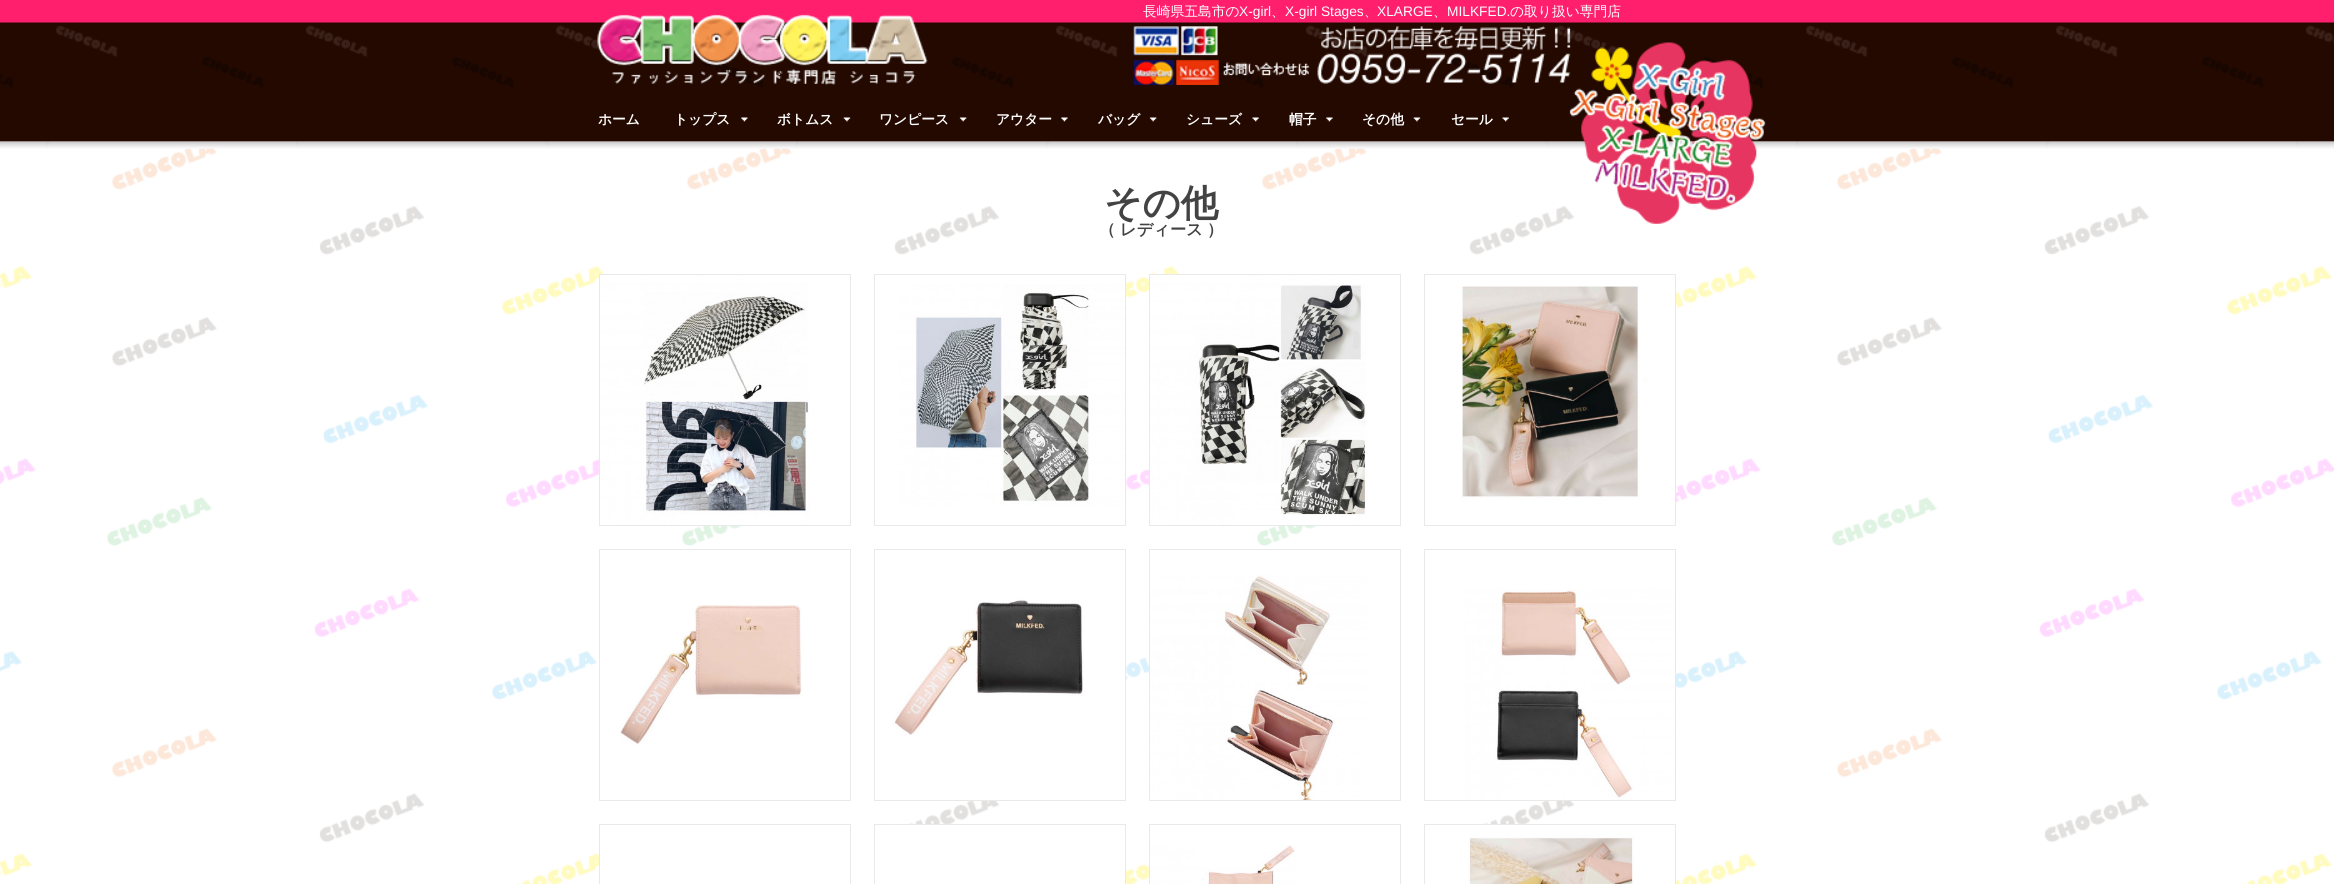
import math
import cairo

surface = cairo.ImageSurface(cairo.FORMAT_RGB24, 2334, 884)
ctx = cairo.Context(surface)
options = cairo.FontOptions()
options.set_hint_metrics(cairo.HINT_METRICS_OFF)
options.set_hint_style(cairo.HINT_STYLE_NONE)
ctx.set_font_options(options)
ctx.set_miter_limit(4)


def picture(path, x, y, w, h):
    ctx.save()
    ctx.set_source_surface(cairo.ImageSurface.create_from_png(path), x, y)
    ctx.rectangle(x, y, w, h)
    ctx.fill()
    ctx.restore()


ctx.set_source_rgb(1, 1, 1)
ctx.paint()
picture("img1.png", 0, 148, 2334, 736)
picture("img2.png", 0, 0, 2334, 149)
ctx.select_font_face("WenQuanYi Zen Hei Medium")
ctx.set_font_size(13.75)
ctx.set_source_rgb(1, 1, 1)
ctx.move_to(1143, 16)
ctx.show_text("長崎県五島市の")
ctx.select_font_face("Liberation Sans")
ctx.move_to(1239, 16)
ctx.show_text("X-girl")
ctx.select_font_face("WenQuanYi Zen Hei Medium")
ctx.move_to(1271, 16)
ctx.show_text("、")
ctx.select_font_face("Liberation Sans")
ctx.move_to(1285, 16)
ctx.show_text("X-girl Stages")
ctx.select_font_face("WenQuanYi Zen Hei Medium")
ctx.move_to(1364, 16)
ctx.show_text("、")
ctx.select_font_face("Liberation Sans")
ctx.move_to(1377, 16)
ctx.show_text("XLARGE")
ctx.select_font_face("WenQuanYi Zen Hei Medium")
ctx.move_to(1433, 16)
ctx.show_text("、")
ctx.select_font_face("Liberation Sans")
ctx.move_to(1447, 16)
ctx.show_text("MILKFED.")
ctx.select_font_face("WenQuanYi Zen Hei Medium")
ctx.move_to(1510, 16)
ctx.show_text("の取り扱い専門店")
picture("img3.png", 597, 14, 331, 71)
picture("img5.png", 1569, 42, 197, 182)
picture("img4.png", 1133, 26, 438, 59)
ctx.select_font_face("WenQuanYi Zen Hei", cairo.FONT_SLANT_NORMAL, cairo.FONT_WEIGHT_BOLD)
ctx.move_to(598, 124)
ctx.show_text("ホーム")
ctx.move_to(674, 124)
ctx.show_text("トップス")
picture("img6.png", 741, 117, 7, 5)
ctx.move_to(777, 124)
ctx.show_text("ボトムス")
picture("img7.png", 843, 117, 8, 5)
ctx.move_to(879, 124)
ctx.show_text("ワンピース")
picture("img8.png", 959, 117, 8, 5)
ctx.move_to(996, 124)
ctx.show_text("アウター")
picture("img9.png", 1061, 117, 7, 5)
ctx.move_to(1098, 124)
ctx.show_text("バッグ")
picture("img8.png", 1149, 117, 8, 5)
ctx.move_to(1186, 124)
ctx.show_text("シューズ")
picture("img10.png", 1252, 117, 7, 5)
ctx.move_to(1289, 124)
ctx.show_text("帽子")
picture("img9.png", 1326, 117, 7, 5)
ctx.move_to(1362, 124)
ctx.show_text("その他")
picture("img11.png", 1413, 117, 8, 5)
ctx.move_to(1451, 124)
ctx.show_text("セール")
picture("img10.png", 1502, 117, 7, 5)
ctx.set_font_size(37.5)
ctx.set_source_rgb(0.263, 0.263, 0.263)
ctx.move_to(1104, 216)
ctx.show_text("その他")
ctx.set_font_size(16.25)
ctx.move_to(1099, 235)
ctx.show_text("（")
ctx.move_to(1120, 235)
ctx.show_text("レディース")
ctx.move_to(1207, 235)
ctx.show_text("）")
ctx.rectangle(599.5, 274.5, 251, 251)
ctx.set_source_rgb(0.914, 0.914, 0.914)
ctx.set_line_width(1)
ctx.stroke()
picture("img12.png", 600, 275, 210, 250)
ctx.rectangle(874.5, 274.5, 251, 251)
ctx.stroke()
picture("img13.png", 898, 284, 227, 223)
ctx.rectangle(1149.5, 274.5, 251, 251)
ctx.stroke()
picture("img14.png", 1150, 275, 217, 250)
ctx.rectangle(1424.5, 274.5, 251, 251)
ctx.stroke()
picture("img15.png", 1460, 286, 215, 222)
ctx.rectangle(599.5, 549.5, 251, 251)
ctx.stroke()
picture("img16.png", 620, 605, 182, 173)
ctx.rectangle(874.5, 549.5, 251, 251)
ctx.stroke()
picture("img17.png", 890, 588, 235, 212)
ctx.rectangle(1149.5, 549.5, 251, 251)
ctx.stroke()
picture("img18.png", 1150, 575, 217, 225)
ctx.rectangle(1424.5, 549.5, 251, 251)
ctx.stroke()
picture("img19.png", 1465, 588, 210, 212)
ctx.rectangle(599.5, 824.5, 251, 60)
ctx.stroke()
ctx.set_source_rgb(1, 1, 1)
ctx.rectangle(600, 856, 7, 12)
ctx.fill()
ctx.rectangle(874.5, 824.5, 251, 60)
ctx.set_source_rgb(0.914, 0.914, 0.914)
ctx.stroke()
ctx.set_source_rgb(1, 1, 1)
ctx.rectangle(895, 825, 230, 59)
ctx.fill()
ctx.rectangle(1149.5, 824.5, 251, 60)
ctx.set_source_rgb(0.914, 0.914, 0.914)
ctx.stroke()
picture("img20.png", 1150, 845, 145, 39)
ctx.rectangle(1424.5, 824.5, 251, 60)
ctx.stroke()
picture("img21.png", 1468, 825, 207, 59)
surface.write_to_png("page.png")
